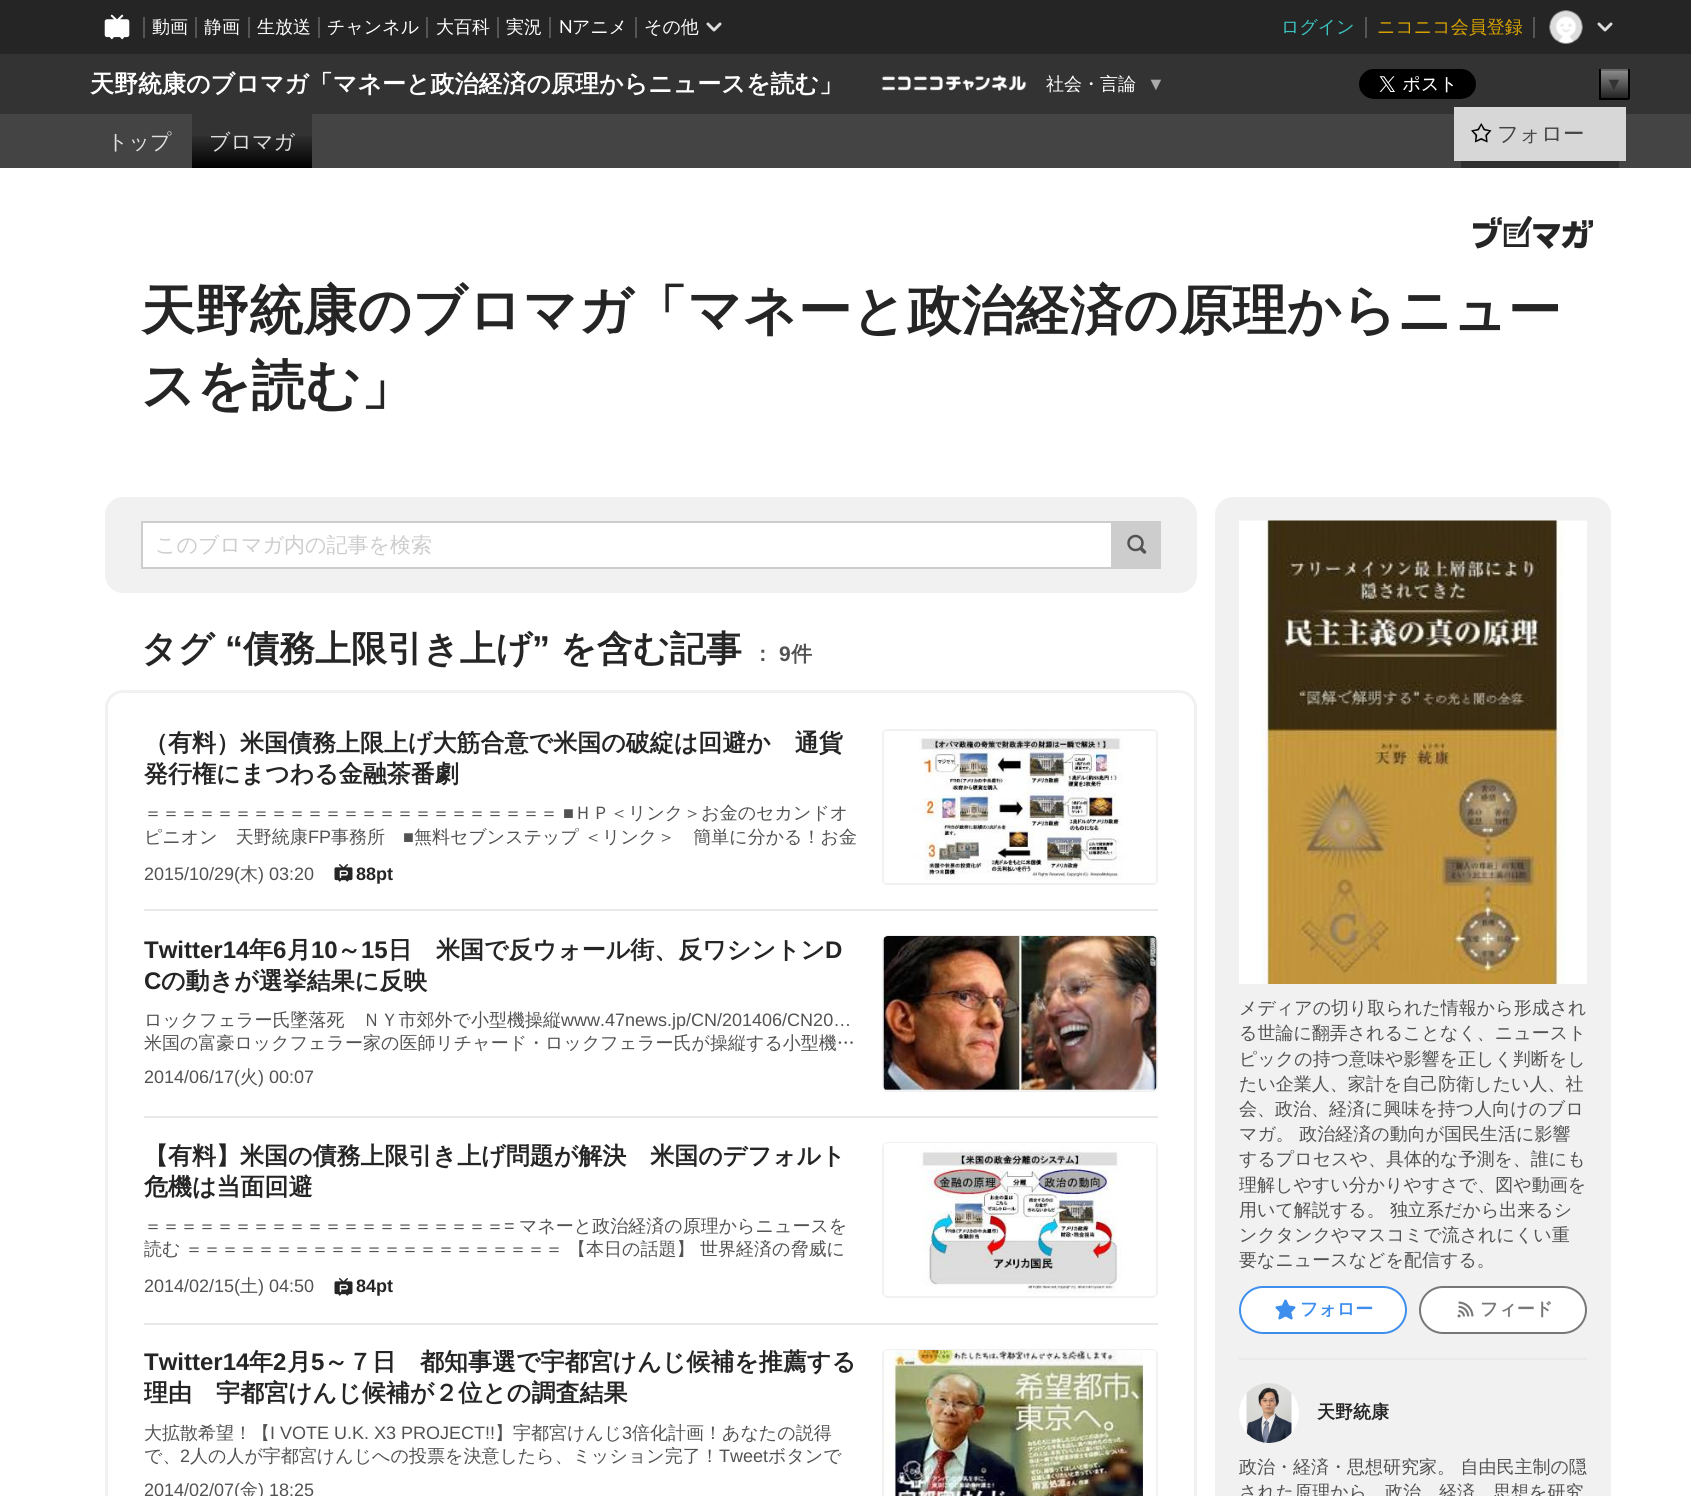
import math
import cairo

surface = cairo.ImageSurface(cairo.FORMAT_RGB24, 1691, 1496)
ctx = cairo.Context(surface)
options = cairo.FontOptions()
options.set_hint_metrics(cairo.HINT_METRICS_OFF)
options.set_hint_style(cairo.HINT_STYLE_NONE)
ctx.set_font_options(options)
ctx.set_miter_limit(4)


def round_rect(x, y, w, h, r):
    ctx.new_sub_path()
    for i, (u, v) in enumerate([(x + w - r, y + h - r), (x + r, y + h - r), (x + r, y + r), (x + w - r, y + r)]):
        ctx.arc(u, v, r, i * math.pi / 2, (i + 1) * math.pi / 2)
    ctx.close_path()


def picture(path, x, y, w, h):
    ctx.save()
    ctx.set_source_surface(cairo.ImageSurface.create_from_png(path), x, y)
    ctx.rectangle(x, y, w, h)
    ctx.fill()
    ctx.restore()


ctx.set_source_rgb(1, 1, 1)
ctx.paint()
ctx.set_source_rgb(0.145, 0.145, 0.145)
ctx.rectangle(0, 0, 1691, 54)
ctx.fill()
picture("img1.png", 104, 14, 26, 26)
ctx.set_source_rgb(0.333, 0.333, 0.333)
ctx.rectangle(143, 17, 2, 21)
ctx.fill()
ctx.select_font_face("WenQuanYi Zen Hei Medium")
ctx.set_font_size(18)
ctx.set_source_rgb(1, 1, 1)
ctx.move_to(152, 33)
ctx.show_text("動画")
ctx.set_source_rgb(0.333, 0.333, 0.333)
ctx.rectangle(195, 17, 2, 21)
ctx.fill()
ctx.set_source_rgb(1, 1, 1)
ctx.move_to(204, 33)
ctx.show_text("静画")
ctx.set_source_rgb(0.333, 0.333, 0.333)
ctx.rectangle(248, 17, 2, 21)
ctx.fill()
ctx.set_source_rgb(1, 1, 1)
ctx.move_to(257, 33)
ctx.show_text("生放送")
ctx.set_source_rgb(0.333, 0.333, 0.333)
ctx.rectangle(318, 17, 2, 21)
ctx.fill()
ctx.set_source_rgb(1, 1, 1)
ctx.move_to(327, 33)
ctx.show_text("チャンネル")
ctx.set_source_rgb(0.333, 0.333, 0.333)
ctx.rectangle(426, 17, 2, 21)
ctx.fill()
ctx.set_source_rgb(1, 1, 1)
ctx.move_to(436, 33)
ctx.show_text("大百科")
ctx.set_source_rgb(0.333, 0.333, 0.333)
ctx.rectangle(497, 17, 2, 21)
ctx.fill()
ctx.set_source_rgb(1, 1, 1)
ctx.move_to(506, 33)
ctx.show_text("実況")
ctx.set_source_rgb(0.333, 0.333, 0.333)
ctx.rectangle(549, 17, 2, 21)
ctx.fill()
ctx.select_font_face("Lato")
ctx.set_source_rgb(1, 1, 1)
ctx.move_to(559, 33)
ctx.show_text("N")
ctx.select_font_face("WenQuanYi Zen Hei Medium")
ctx.move_to(572, 33)
ctx.show_text("アニメ")
ctx.set_source_rgb(0.333, 0.333, 0.333)
ctx.rectangle(635, 17, 2, 21)
ctx.fill()
ctx.set_source_rgb(1, 1, 1)
ctx.move_to(644, 33)
ctx.show_text("その他")
picture("img2.png", 706, 22, 16, 10)
ctx.set_source_rgb(0.224, 0.769, 0.757)
ctx.move_to(1281, 33)
ctx.show_text("ログイン")
ctx.set_source_rgb(0.333, 0.333, 0.333)
ctx.rectangle(1365, 17, 2, 21)
ctx.fill()
ctx.set_source_rgb(0.851, 0.639, 0)
ctx.move_to(1377, 33)
ctx.show_text("ニコニコ会員登録")
ctx.set_source_rgb(0.333, 0.333, 0.333)
ctx.rectangle(1533, 17, 2, 21)
ctx.fill()
picture("img3.png", 1549, 10, 34, 34)
picture("img2.png", 1597, 22, 16, 10)
ctx.set_source_rgb(0.2, 0.2, 0.2)
ctx.rectangle(0, 54, 1691, 60)
ctx.fill()
ctx.select_font_face("WenQuanYi Zen Hei", cairo.FONT_SLANT_NORMAL, cairo.FONT_WEIGHT_BOLD)
ctx.set_font_size(24)
ctx.set_source_rgb(1, 1, 1)
ctx.move_to(90, 92)
ctx.show_text("天野統康のブロマガ「マネーと政治経済の原理からニュースを読む」")
picture("img4.png", 881, 75, 146, 16)
ctx.select_font_face("WenQuanYi Zen Hei Medium")
ctx.set_font_size(18)
ctx.move_to(1046, 90)
ctx.show_text("社会・言論")
ctx.select_font_face("Liberation Sans")
ctx.set_source_rgb(0.667, 0.667, 0.667)
ctx.move_to(1147, 90)
ctx.show_text("▼")
picture("img5.png", 1359, 69, 117, 30)
ctx.set_source_rgb(0.533, 0.533, 0.533)
ctx.rectangle(1601, 71, 27, 27)
ctx.fill()
picture("img6.png", 1601, 72, 27, 26)
ctx.set_source_rgb(0.4, 0.4, 0.4)
ctx.rectangle(1599, 69, 30, 2)
ctx.fill()
ctx.set_source_rgb(0, 0, 0)
ctx.rectangle(1628, 69, 2, 30)
ctx.fill()
ctx.rectangle(1599, 98, 30, 2)
ctx.fill()
ctx.rectangle(1599, 69, 2, 30)
ctx.fill()
ctx.set_source_rgb(0.2, 0.2, 0.2)
ctx.move_to(1605, 90)
ctx.show_text("▼")
ctx.set_source_rgb(0.267, 0.267, 0.267)
ctx.rectangle(0, 114, 1691, 54)
ctx.fill()
ctx.select_font_face("WenQuanYi Zen Hei Medium")
ctx.set_font_size(21)
ctx.set_source_rgb(0.878, 0.878, 0.878)
ctx.move_to(107, 149)
ctx.show_text("トップ")
ctx.set_source_rgb(0.2, 0.2, 0.2)
ctx.rectangle(192, 114, 120, 54)
ctx.fill()
picture("img7.png", 192, 136, 120, 32)
ctx.set_source_rgb(0.878, 0.878, 0.878)
ctx.move_to(209, 149)
ctx.show_text("ブロマガ")
ctx.set_source_rgb(0.188, 0.188, 0.188)
ctx.rectangle(1461, 161, 158, 7)
ctx.fill()
ctx.set_source_rgb(0.843, 0.843, 0.843)
ctx.rectangle(1454, 107, 172, 54)
ctx.fill()
picture("img8.png", 1471, 123, 21, 20)
ctx.set_font_size(21.5)
ctx.set_source_rgb(0.267, 0.267, 0.267)
ctx.move_to(1497, 141)
ctx.show_text("フォロー")
picture("img9.png", 1473, 216, 120, 33)
ctx.select_font_face("WenQuanYi Zen Hei", cairo.FONT_SLANT_NORMAL, cairo.FONT_WEIGHT_BOLD)
ctx.set_font_size(54)
ctx.set_source_rgb(0.145, 0.145, 0.145)
ctx.move_to(141, 329)
ctx.show_text("天野統康のブロマガ「マネーと政治経済の原理からニュー")
ctx.move_to(141, 404)
ctx.show_text("スを読む」")
ctx.set_source_rgb(0.945, 0.945, 0.945)
round_rect(105, 497, 1092, 96, 18)
ctx.fill()
ctx.set_source_rgb(1, 1, 1)
ctx.rectangle(142, 522, 970, 46)
ctx.fill_preserve()
ctx.set_source_rgb(0.804, 0.804, 0.804)
ctx.stroke()
ctx.select_font_face("WenQuanYi Zen Hei Medium")
ctx.set_font_size(21)
ctx.move_to(155, 552)
ctx.show_text("このブロマガ内の記事を検索")
ctx.rectangle(1113, 521, 48, 48)
ctx.fill()
picture("img10.png", 1127, 534, 20, 20)
ctx.select_font_face("WenQuanYi Zen Hei", cairo.FONT_SLANT_NORMAL, cairo.FONT_WEIGHT_BOLD)
ctx.set_font_size(36)
ctx.set_source_rgb(0.145, 0.145, 0.145)
ctx.move_to(141, 661)
ctx.show_text("タグ")
ctx.select_font_face("Liberation Sans", cairo.FONT_SLANT_NORMAL, cairo.FONT_WEIGHT_BOLD)
ctx.move_to(225, 661)
ctx.show_text("“")
ctx.select_font_face("WenQuanYi Zen Hei", cairo.FONT_SLANT_NORMAL, cairo.FONT_WEIGHT_BOLD)
ctx.move_to(243, 661)
ctx.show_text("債務上限引き上げ")
ctx.select_font_face("Liberation Sans", cairo.FONT_SLANT_NORMAL, cairo.FONT_WEIGHT_BOLD)
ctx.move_to(532, 661)
ctx.show_text("”")
ctx.select_font_face("WenQuanYi Zen Hei", cairo.FONT_SLANT_NORMAL, cairo.FONT_WEIGHT_BOLD)
ctx.move_to(560, 661)
ctx.show_text("を含む記事")
ctx.set_font_size(21)
ctx.set_source_rgb(0.322, 0.322, 0.322)
ctx.move_to(752, 661)
ctx.show_text("：")
ctx.select_font_face("Liberation Sans", cairo.FONT_SLANT_NORMAL, cairo.FONT_WEIGHT_BOLD)
ctx.move_to(779, 661)
ctx.show_text("9")
ctx.select_font_face("WenQuanYi Zen Hei", cairo.FONT_SLANT_NORMAL, cairo.FONT_WEIGHT_BOLD)
ctx.move_to(791, 661)
ctx.show_text("件")
round_rect(106.5, 691.5, 1089, 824, 16.5)
ctx.set_source_rgb(0.945, 0.945, 0.945)
ctx.set_line_width(3)
ctx.stroke()
ctx.set_font_size(24)
ctx.set_source_rgb(0.145, 0.145, 0.145)
ctx.move_to(144, 751)
ctx.show_text("（有料）米国債務上限上げ大筋合意で米国の破綻は回避か　通貨")
ctx.move_to(144, 782)
ctx.show_text("発行権にまつわる金融茶番劇")
ctx.select_font_face("WenQuanYi Zen Hei Medium")
ctx.set_font_size(18)
ctx.set_source_rgb(0.322, 0.322, 0.322)
ctx.move_to(144, 819)
ctx.show_text("＝＝＝＝＝＝＝＝＝＝＝＝＝＝＝＝＝＝＝＝＝＝＝")
ctx.select_font_face("Liberation Sans")
ctx.move_to(563, 819)
ctx.show_text("■")
ctx.select_font_face("WenQuanYi Zen Hei Medium")
ctx.move_to(574, 819)
ctx.show_text("ＨＰ＜リンク＞お金のセカンドオ")
ctx.move_to(144, 843)
ctx.show_text("ピニオン　天野統康")
ctx.select_font_face("Liberation Sans")
ctx.move_to(308, 843)
ctx.show_text("FP")
ctx.select_font_face("WenQuanYi Zen Hei Medium")
ctx.move_to(331, 843)
ctx.show_text("事務所")
ctx.select_font_face("Liberation Sans")
ctx.move_to(403, 843)
ctx.show_text("■")
ctx.select_font_face("WenQuanYi Zen Hei Medium")
ctx.move_to(414, 843)
ctx.show_text("無料セブンステップ")
ctx.move_to(584, 843)
ctx.show_text("＜リンク＞　簡単に分かる！お金")
ctx.select_font_face("Liberation Sans")
ctx.move_to(144, 880)
ctx.show_text("2015/10/29(")
ctx.select_font_face("WenQuanYi Zen Hei Medium")
ctx.move_to(240, 880)
ctx.show_text("木")
ctx.select_font_face("Liberation Sans")
ctx.move_to(258, 880)
ctx.show_text(") 03:20")
picture("img11.png", 334, 864, 19, 18)
ctx.select_font_face("Liberation Sans", cairo.FONT_SLANT_NORMAL, cairo.FONT_WEIGHT_BOLD)
ctx.set_source_rgb(0.145, 0.145, 0.145)
ctx.move_to(356, 880)
ctx.show_text("88pt")
round_rect(883, 730, 274, 154, 5)
ctx.set_source_rgb(0.945, 0.945, 0.945)
ctx.set_line_width(2)
ctx.stroke()
picture("img12.png", 884, 731, 272, 152)
ctx.set_source_rgb(0.914, 0.914, 0.914)
ctx.rectangle(144, 909, 1014, 2)
ctx.fill()
ctx.set_font_size(24)
ctx.set_source_rgb(0.145, 0.145, 0.145)
ctx.move_to(144, 958)
ctx.show_text("Twitter14")
ctx.select_font_face("WenQuanYi Zen Hei", cairo.FONT_SLANT_NORMAL, cairo.FONT_WEIGHT_BOLD)
ctx.move_to(249, 958)
ctx.show_text("年")
ctx.select_font_face("Liberation Sans", cairo.FONT_SLANT_NORMAL, cairo.FONT_WEIGHT_BOLD)
ctx.move_to(273, 958)
ctx.show_text("6")
ctx.select_font_face("WenQuanYi Zen Hei", cairo.FONT_SLANT_NORMAL, cairo.FONT_WEIGHT_BOLD)
ctx.move_to(287, 958)
ctx.show_text("月")
ctx.select_font_face("Liberation Sans", cairo.FONT_SLANT_NORMAL, cairo.FONT_WEIGHT_BOLD)
ctx.move_to(311, 958)
ctx.show_text("10")
ctx.select_font_face("WenQuanYi Zen Hei", cairo.FONT_SLANT_NORMAL, cairo.FONT_WEIGHT_BOLD)
ctx.move_to(337, 958)
ctx.show_text("～")
ctx.select_font_face("Liberation Sans", cairo.FONT_SLANT_NORMAL, cairo.FONT_WEIGHT_BOLD)
ctx.move_to(361, 958)
ctx.show_text("15")
ctx.select_font_face("WenQuanYi Zen Hei", cairo.FONT_SLANT_NORMAL, cairo.FONT_WEIGHT_BOLD)
ctx.move_to(388, 958)
ctx.show_text("日　米国で反ウォール街、反ワシントン")
ctx.select_font_face("Liberation Sans", cairo.FONT_SLANT_NORMAL, cairo.FONT_WEIGHT_BOLD)
ctx.move_to(825, 958)
ctx.show_text("D")
ctx.move_to(144, 989)
ctx.show_text("C")
ctx.select_font_face("WenQuanYi Zen Hei", cairo.FONT_SLANT_NORMAL, cairo.FONT_WEIGHT_BOLD)
ctx.move_to(161, 989)
ctx.show_text("の動きが選挙結果に反映")
ctx.select_font_face("WenQuanYi Zen Hei Medium")
ctx.set_font_size(18)
ctx.set_source_rgb(0.322, 0.322, 0.322)
ctx.move_to(144, 1026)
ctx.show_text("ロックフェラー氏墜落死　ＮＹ市郊外で小型機操縦")
ctx.select_font_face("Liberation Sans")
ctx.move_to(561, 1026)
ctx.show_text("www.47news.jp/CN/201406/CN20…")
ctx.select_font_face("WenQuanYi Zen Hei Medium")
ctx.move_to(144, 1049)
ctx.show_text("米国の富豪ロックフェラー家の医師リチャード・ロックフェラー氏が操縦する小型機…")
ctx.select_font_face("Liberation Sans")
ctx.move_to(144, 1083)
ctx.show_text("2014/06/17(")
ctx.select_font_face("WenQuanYi Zen Hei Medium")
ctx.move_to(240, 1083)
ctx.show_text("火")
ctx.select_font_face("Liberation Sans")
ctx.move_to(258, 1083)
ctx.show_text(") 00:07")
round_rect(883, 936, 274, 155, 5)
ctx.set_source_rgb(0.945, 0.945, 0.945)
ctx.stroke()
picture("img13.png", 883, 936, 274, 155)
ctx.set_source_rgb(0.914, 0.914, 0.914)
ctx.rectangle(144, 1116, 1014, 2)
ctx.fill()
ctx.select_font_face("WenQuanYi Zen Hei", cairo.FONT_SLANT_NORMAL, cairo.FONT_WEIGHT_BOLD)
ctx.set_font_size(24)
ctx.set_source_rgb(0.145, 0.145, 0.145)
ctx.move_to(144, 1164)
ctx.show_text("【有料】米国の債務上限引き上げ問題が解決　米国のデフォルト")
ctx.move_to(144, 1195)
ctx.show_text("危機は当面回避")
ctx.select_font_face("WenQuanYi Zen Hei Medium")
ctx.set_font_size(18)
ctx.set_source_rgb(0.322, 0.322, 0.322)
ctx.move_to(144, 1232)
ctx.show_text("＝＝＝＝＝＝＝＝＝＝＝＝＝＝＝＝＝＝＝＝")
ctx.select_font_face("Liberation Sans")
ctx.move_to(504, 1232)
ctx.show_text("=")
ctx.select_font_face("WenQuanYi Zen Hei Medium")
ctx.move_to(519, 1232)
ctx.show_text("マネーと政治経済の原理からニュースを")
ctx.move_to(144, 1255)
ctx.show_text("読む")
ctx.move_to(185, 1255)
ctx.show_text("＝＝＝＝＝＝＝＝＝＝＝＝＝＝＝＝＝＝＝＝＝")
ctx.move_to(568, 1255)
ctx.show_text("【本日の話題】")
ctx.move_to(700, 1255)
ctx.show_text("世界経済の脅威に")
ctx.select_font_face("Liberation Sans")
ctx.move_to(144, 1292)
ctx.show_text("2014/02/15(")
ctx.select_font_face("WenQuanYi Zen Hei Medium")
ctx.move_to(240, 1292)
ctx.show_text("土")
ctx.select_font_face("Liberation Sans")
ctx.move_to(258, 1292)
ctx.show_text(") 04:50")
picture("img11.png", 334, 1278, 19, 18)
ctx.select_font_face("Liberation Sans", cairo.FONT_SLANT_NORMAL, cairo.FONT_WEIGHT_BOLD)
ctx.set_source_rgb(0.145, 0.145, 0.145)
ctx.move_to(356, 1292)
ctx.show_text("84pt")
round_rect(883, 1143, 274, 154, 5)
ctx.set_source_rgb(0.945, 0.945, 0.945)
ctx.stroke()
picture("img14.png", 884, 1143, 272, 152)
ctx.set_source_rgb(0.914, 0.914, 0.914)
ctx.rectangle(144, 1323, 1014, 2)
ctx.fill()
ctx.set_font_size(24)
ctx.set_source_rgb(0.145, 0.145, 0.145)
ctx.move_to(144, 1370)
ctx.show_text("Twitter14")
ctx.select_font_face("WenQuanYi Zen Hei", cairo.FONT_SLANT_NORMAL, cairo.FONT_WEIGHT_BOLD)
ctx.move_to(249, 1370)
ctx.show_text("年")
ctx.select_font_face("Liberation Sans", cairo.FONT_SLANT_NORMAL, cairo.FONT_WEIGHT_BOLD)
ctx.move_to(273, 1370)
ctx.show_text("2")
ctx.select_font_face("WenQuanYi Zen Hei", cairo.FONT_SLANT_NORMAL, cairo.FONT_WEIGHT_BOLD)
ctx.move_to(287, 1370)
ctx.show_text("月")
ctx.select_font_face("Liberation Sans", cairo.FONT_SLANT_NORMAL, cairo.FONT_WEIGHT_BOLD)
ctx.move_to(311, 1370)
ctx.show_text("5")
ctx.select_font_face("WenQuanYi Zen Hei", cairo.FONT_SLANT_NORMAL, cairo.FONT_WEIGHT_BOLD)
ctx.move_to(324, 1370)
ctx.show_text("～７日　都知事選で宇都宮けんじ候補を推薦する")
ctx.move_to(144, 1401)
ctx.show_text("理由　宇都宮けんじ候補が２位との調査結果")
ctx.select_font_face("WenQuanYi Zen Hei Medium")
ctx.set_font_size(18)
ctx.set_source_rgb(0.322, 0.322, 0.322)
ctx.move_to(144, 1439)
ctx.show_text("大拡散希望！【")
ctx.select_font_face("Liberation Sans")
ctx.move_to(270, 1439)
ctx.show_text("I VOTE U.K. X3 PROJECT!!")
ctx.select_font_face("WenQuanYi Zen Hei Medium")
ctx.move_to(495, 1439)
ctx.show_text("】宇都宮けんじ")
ctx.select_font_face("Liberation Sans")
ctx.move_to(622, 1439)
ctx.show_text("3")
ctx.select_font_face("WenQuanYi Zen Hei Medium")
ctx.move_to(632, 1439)
ctx.show_text("倍化計画！あなたの説得")
ctx.move_to(144, 1462)
ctx.show_text("で、")
ctx.select_font_face("Liberation Sans")
ctx.move_to(180, 1462)
ctx.show_text("2")
ctx.select_font_face("WenQuanYi Zen Hei Medium")
ctx.move_to(190, 1462)
ctx.show_text("人の人が宇都宮けんじへの投票を決意したら、ミッション完了！")
ctx.select_font_face("Liberation Sans")
ctx.move_to(719, 1462)
ctx.show_text("Tweet")
ctx.select_font_face("WenQuanYi Zen Hei Medium")
ctx.move_to(768, 1462)
ctx.show_text("ボタンで")
ctx.select_font_face("Liberation Sans")
ctx.move_to(144, 1496)
ctx.show_text("2014/02/07(")
ctx.select_font_face("WenQuanYi Zen Hei Medium")
ctx.move_to(240, 1496)
ctx.show_text("金")
ctx.select_font_face("Liberation Sans")
ctx.move_to(258, 1496)
ctx.show_text(") 18:25")
round_rect(883, 1350, 274, 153, 5)
ctx.set_source_rgb(0.945, 0.945, 0.945)
ctx.stroke()
picture("img15.png", 884, 1350, 272, 146)
round_rect(1215, 497, 396, 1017, 18)
ctx.fill()
picture("img16.png", 1239, 520, 348, 464)
ctx.select_font_face("WenQuanYi Zen Hei Medium")
ctx.set_source_rgb(0.322, 0.322, 0.322)
ctx.move_to(1239, 1014)
ctx.show_text("メディアの切り取られた情報から形成され")
ctx.move_to(1239, 1039)
ctx.show_text("る世論に翻弄されることなく、ニュースト")
ctx.move_to(1239, 1065)
ctx.show_text("ピックの持つ意味や影響を正しく判断をし")
ctx.move_to(1239, 1090)
ctx.show_text("たい企業人、家計を自己防衛したい人、社")
ctx.move_to(1239, 1115)
ctx.show_text("会、政治、経済に興味を持つ人向けのブロ")
ctx.move_to(1239, 1140)
ctx.show_text("マガ。 政治経済の動向が国民生活に影響")
ctx.move_to(1239, 1165)
ctx.show_text("するプロセスや、具体的な予測を、誰にも")
ctx.move_to(1239, 1191)
ctx.show_text("理解しやすい分かりやすさで、図や動画を")
ctx.move_to(1239, 1216)
ctx.show_text("用いて解説する。 独立系だから出来るシ")
ctx.move_to(1239, 1241)
ctx.show_text("ンクタンクやマスコミで流されにくい重")
ctx.move_to(1239, 1266)
ctx.show_text("要なニュースなどを配信する。")
ctx.set_source_rgb(1, 1, 1)
round_rect(1240, 1287, 166, 46, 23)
ctx.fill_preserve()
ctx.set_source_rgb(0.243, 0.557, 0.929)
ctx.stroke()
picture("img17.png", 1275, 1299, 21, 21)
ctx.select_font_face("WenQuanYi Zen Hei", cairo.FONT_SLANT_NORMAL, cairo.FONT_WEIGHT_BOLD)
ctx.move_to(1300, 1315)
ctx.show_text("フォロー")
ctx.set_source_rgb(1, 1, 1)
round_rect(1420, 1287, 166, 46, 23)
ctx.fill_preserve()
ctx.set_source_rgb(0.467, 0.467, 0.467)
ctx.stroke()
picture("img18.png", 1457, 1301, 17, 17)
ctx.move_to(1480, 1315)
ctx.show_text("フィード")
ctx.set_source_rgb(0.914, 0.914, 0.914)
ctx.rectangle(1239, 1358, 348, 2)
ctx.fill()
picture("img19.png", 1239, 1383, 60, 60)
ctx.set_source_rgb(0.145, 0.145, 0.145)
ctx.move_to(1317, 1418)
ctx.show_text("天野統康")
ctx.select_font_face("WenQuanYi Zen Hei Medium")
ctx.set_source_rgb(0.322, 0.322, 0.322)
ctx.move_to(1239, 1473)
ctx.show_text("政治・経済・思想研究家。 自由民主制の隠")
ctx.move_to(1239, 1498)
ctx.show_text("された原理から、政治、経済、思想を研究")
surface.write_to_png("page.png")
